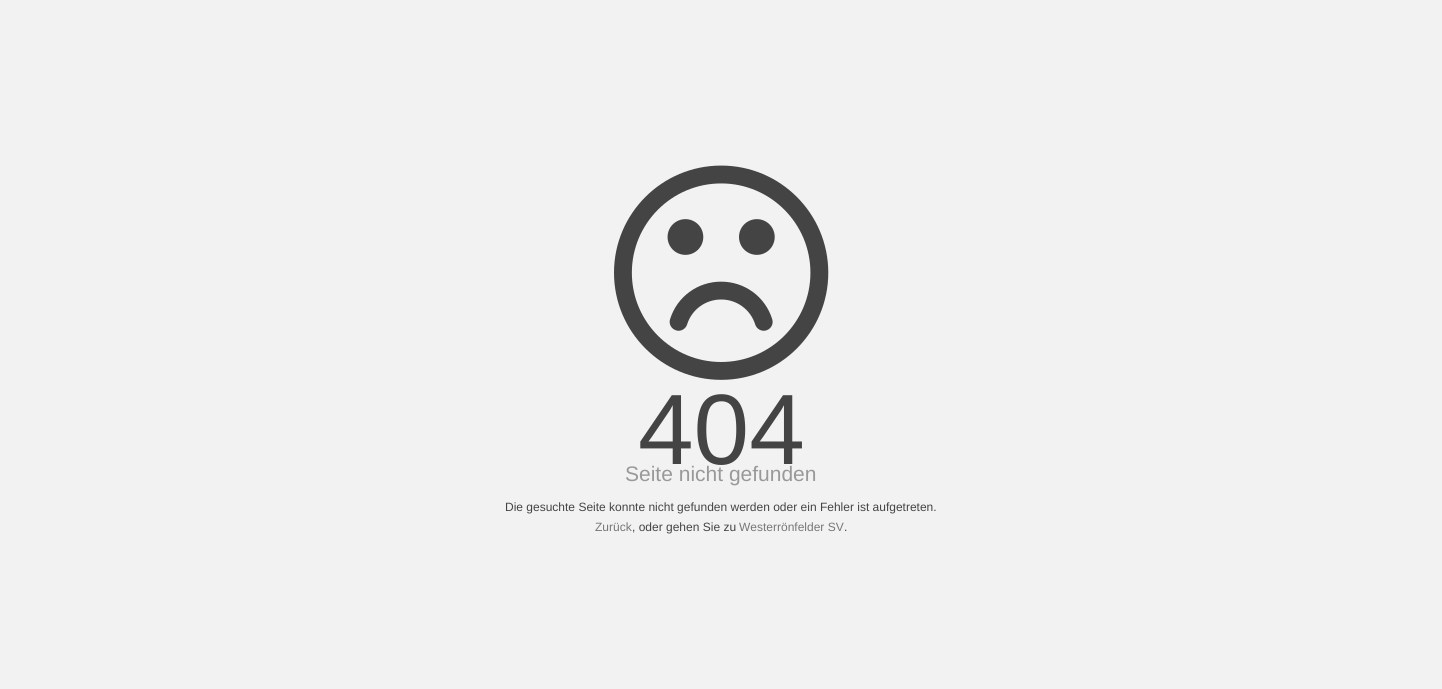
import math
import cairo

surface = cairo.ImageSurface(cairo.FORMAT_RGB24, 1442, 689)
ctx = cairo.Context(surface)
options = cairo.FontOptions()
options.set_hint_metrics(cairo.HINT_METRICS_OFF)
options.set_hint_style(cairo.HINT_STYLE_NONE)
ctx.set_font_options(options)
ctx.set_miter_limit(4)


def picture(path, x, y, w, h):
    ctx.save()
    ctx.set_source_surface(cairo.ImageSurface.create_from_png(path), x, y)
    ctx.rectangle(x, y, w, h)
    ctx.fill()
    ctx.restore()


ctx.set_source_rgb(0.949, 0.949, 0.949)
ctx.paint()
picture("img1.png", 614, 165, 215, 215)
ctx.select_font_face("Liberation Sans")
ctx.set_font_size(100)
ctx.set_source_rgb(0.267, 0.267, 0.267)
ctx.move_to(638, 464)
ctx.show_text("404")
ctx.set_font_size(21)
ctx.set_source_rgb(0.6, 0.6, 0.6)
ctx.move_to(625, 481)
ctx.show_text("Seite nicht gefunden")
ctx.set_font_size(12)
ctx.set_source_rgb(0.267, 0.267, 0.267)
ctx.move_to(505, 511)
ctx.show_text("Die gesuchte Seite konnte nicht gefunden werden oder ein Fehler ist aufgetreten.")
ctx.set_source_rgb(0.467, 0.467, 0.467)
ctx.move_to(595, 531)
ctx.show_text("Zurück")
ctx.set_source_rgb(0.267, 0.267, 0.267)
ctx.move_to(632, 531)
ctx.show_text(", oder gehen Sie zu")
ctx.set_source_rgb(0.467, 0.467, 0.467)
ctx.move_to(739, 531)
ctx.show_text("Westerrönfelder SV")
ctx.set_source_rgb(0.267, 0.267, 0.267)
ctx.move_to(844, 531)
ctx.show_text(".")
surface.write_to_png("page.png")
